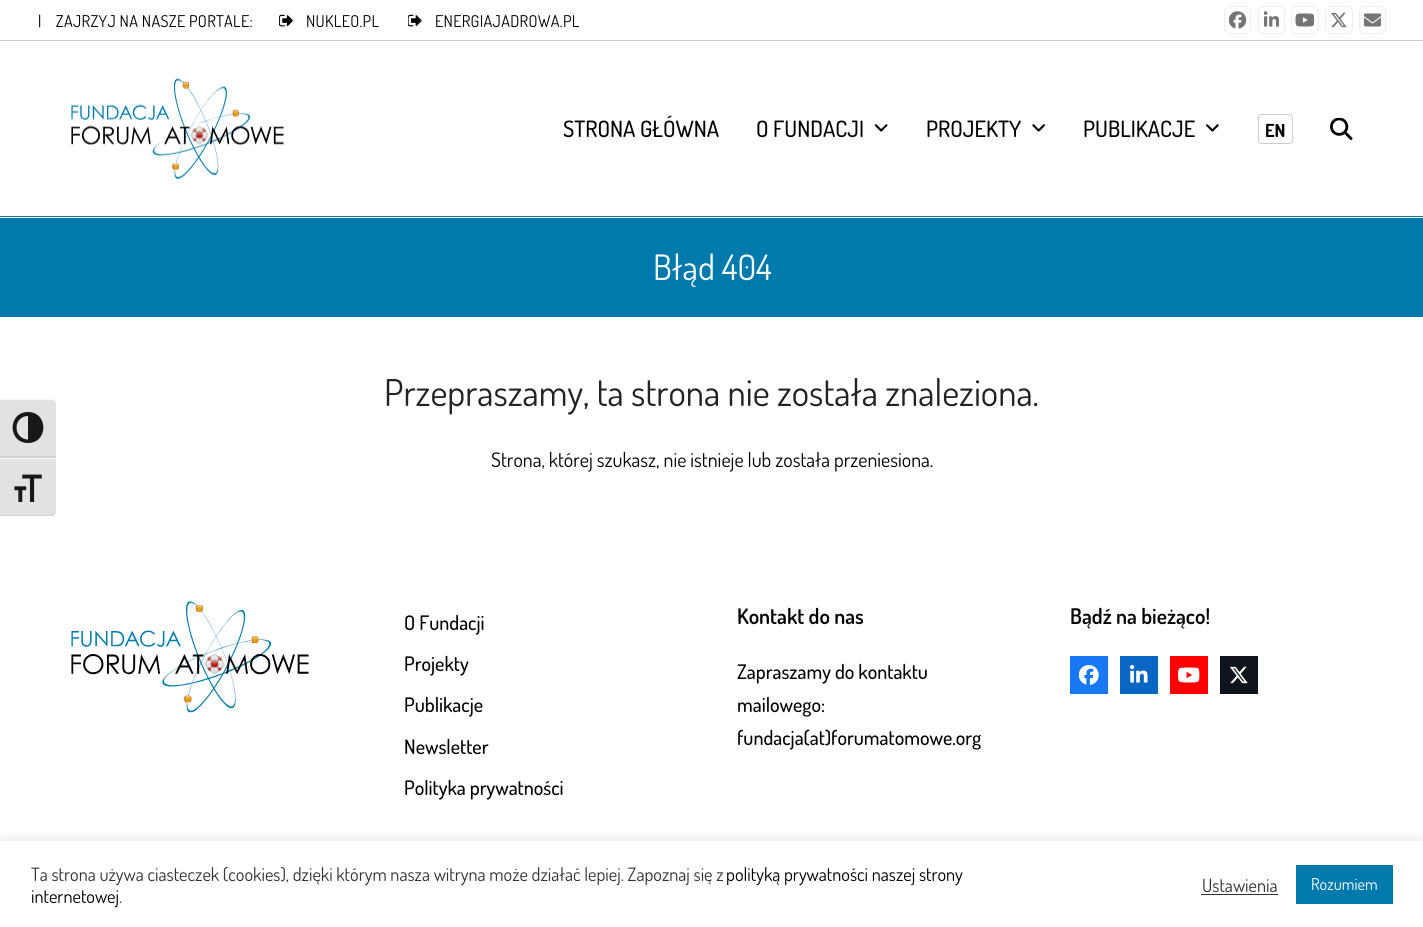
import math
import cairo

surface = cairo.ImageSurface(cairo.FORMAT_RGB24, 1423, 927)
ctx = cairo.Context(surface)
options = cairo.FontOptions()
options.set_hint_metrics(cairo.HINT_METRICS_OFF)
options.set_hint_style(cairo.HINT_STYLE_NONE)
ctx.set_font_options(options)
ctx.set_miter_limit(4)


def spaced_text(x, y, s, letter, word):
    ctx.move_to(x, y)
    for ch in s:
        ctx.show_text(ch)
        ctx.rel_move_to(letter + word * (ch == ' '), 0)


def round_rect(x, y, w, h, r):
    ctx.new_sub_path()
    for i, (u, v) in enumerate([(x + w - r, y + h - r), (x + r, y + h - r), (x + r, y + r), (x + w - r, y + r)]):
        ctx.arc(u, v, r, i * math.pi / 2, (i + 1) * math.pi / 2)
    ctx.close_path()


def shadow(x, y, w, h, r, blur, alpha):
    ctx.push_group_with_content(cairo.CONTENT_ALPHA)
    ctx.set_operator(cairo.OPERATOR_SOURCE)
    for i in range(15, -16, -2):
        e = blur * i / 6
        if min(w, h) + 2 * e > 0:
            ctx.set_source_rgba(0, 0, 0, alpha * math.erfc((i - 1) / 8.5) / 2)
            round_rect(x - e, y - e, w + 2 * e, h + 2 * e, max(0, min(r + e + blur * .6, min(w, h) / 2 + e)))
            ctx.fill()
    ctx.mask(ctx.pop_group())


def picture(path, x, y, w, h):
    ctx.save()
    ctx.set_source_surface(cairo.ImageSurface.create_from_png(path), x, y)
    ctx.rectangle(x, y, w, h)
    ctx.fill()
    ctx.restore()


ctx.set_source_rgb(1, 1, 1)
ctx.paint()
ctx.set_source_rgb(0.886, 0.886, 0.886)
ctx.new_path()
ctx.move_to(0, 399)
ctx.line_to(51, 399)
ctx.curve_to(54, 399, 56, 401, 56, 404)
ctx.line_to(56, 458)
ctx.line_to(0, 458)
ctx.close_path()
ctx.fill()
ctx.set_source_rgb(0.961, 0.961, 0.961)
ctx.new_path()
ctx.move_to(0, 400)
ctx.line_to(51, 400)
ctx.curve_to(54, 400, 56, 402, 56, 404)
ctx.curve_to(56, 401, 54, 399, 51, 399)
ctx.line_to(0, 399)
ctx.close_path()
ctx.fill()
ctx.set_source_rgb(0.824, 0.824, 0.824)
ctx.rectangle(0, 456, 56, 2)
ctx.fill()
ctx.set_source_rgb(0.094, 0.094, 0.094)
ctx.new_path()
ctx.move_to(28, 412)
ctx.curve_to(7.5, 412, 7.5, 443, 28, 443)
ctx.curve_to(48.5, 443, 48.5, 412, 28, 412)
ctx.close_path()
ctx.move_to(16.5, 427.5)
ctx.curve_to(16.5, 421, 21.5, 416, 28, 416)
ctx.line_to(28, 439.5)
ctx.curve_to(21.5, 439.5, 16.5, 434, 16.5, 427.5)
ctx.close_path()
ctx.fill()
ctx.set_source_rgb(0.886, 0.886, 0.886)
ctx.new_path()
ctx.move_to(0, 458)
ctx.line_to(56, 458)
ctx.line_to(56, 511)
ctx.curve_to(56, 514, 54, 516, 51, 516)
ctx.line_to(0, 516)
ctx.close_path()
ctx.fill()
ctx.set_source_rgb(0.961, 0.961, 0.961)
ctx.rectangle(0, 458, 56, 1)
ctx.fill()
ctx.set_source_rgb(0.824, 0.824, 0.824)
ctx.new_path()
ctx.move_to(51, 516)
ctx.curve_to(54, 516, 56, 514, 56, 511)
ctx.curve_to(56, 513, 54, 515, 51, 515)
ctx.line_to(0, 515)
ctx.line_to(0, 516)
ctx.close_path()
ctx.fill()
picture("img1.png", 14, 474, 28, 28)
ctx.set_source_rgb(0.8, 0.8, 0.8)
ctx.rectangle(0, 40, 1423, 1)
ctx.fill()
ctx.select_font_face("Dosis")
ctx.set_font_size(16.25)
ctx.set_source_rgb(0, 0, 0)
spaced_text(38, 27, "|    ZAJRZYJ NA NASZE PORTALE:", 0.3, 0)
picture("img2.png", 279, 14, 14, 13)
spaced_text(306, 27, "NUKLEO.PL", 0.3, 0)
picture("img3.png", 408, 14, 14, 13)
spaced_text(435, 27, "ENERGIAJADROWA.PL", 0.3, 0)
round_rect(1224.5, 6.5, 26, 27, 5.5)
ctx.set_source_rgb(0.933, 0.933, 0.933)
ctx.set_line_width(1)
ctx.stroke()
picture("img4.png", 1229, 11, 17, 18)
round_rect(1258.5, 6.5, 26, 27, 5.5)
ctx.stroke()
picture("img5.png", 1264, 11, 15, 16)
round_rect(1291.5, 6.5, 27, 27, 5.5)
ctx.stroke()
picture("img6.png", 1295, 13, 20, 14)
round_rect(1325.5, 6.5, 27, 27, 5.5)
ctx.stroke()
picture("img7.png", 1331, 12, 16, 16)
round_rect(1359.5, 6.5, 26, 27, 5.5)
ctx.stroke()
picture("img8.png", 1364, 13, 17, 14)
picture("img9.png", 71, 78, 213, 101)
ctx.select_font_face("Dosis Medium")
ctx.set_font_size(22.5)
ctx.set_source_rgb(0, 0, 0)
ctx.move_to(563, 137)
ctx.show_text("STRONA GŁÓWNA")
ctx.move_to(756, 137)
ctx.show_text("O FUNDACJI")
picture("img10.png", 874, 124, 14, 8)
ctx.move_to(926, 137)
ctx.show_text("PROJEKTY")
picture("img11.png", 1032, 124, 13, 8)
ctx.move_to(1083, 137)
ctx.show_text("PUBLIKACJE")
picture("img12.png", 1206, 124, 13, 8)
round_rect(1258.5, 114.5, 34, 29, 3.5)
ctx.set_source_rgb(0.8, 0.8, 0.8)
ctx.stroke()
ctx.select_font_face("Dosis", cairo.FONT_SLANT_NORMAL, cairo.FONT_WEIGHT_BOLD)
ctx.set_font_size(18)
ctx.set_source_rgb(0, 0, 0)
ctx.move_to(1265, 137)
ctx.show_text("EN")
picture("img13.png", 1330, 118, 23, 22)
ctx.set_source_rgb(0, 0.478, 0.675)
ctx.rectangle(0, 218, 1423, 99)
ctx.fill()
ctx.rectangle(0, 216, 1423, 1)
ctx.fill()
ctx.select_font_face("Dosis")
ctx.set_font_size(35)
ctx.set_source_rgb(1, 1, 1)
ctx.move_to(653, 280)
ctx.show_text("Błąd 404")
ctx.set_font_size(36.9)
ctx.set_source_rgb(0.133, 0.133, 0.133)
ctx.move_to(384, 406)
ctx.show_text("Przepraszamy, ta strona nie została znaleziona.")
ctx.set_font_size(20)
ctx.set_source_rgb(0, 0, 0)
ctx.move_to(491, 467)
ctx.show_text("Strona, której szukasz, nie istnieje lub została przeniesiona.")
picture("img14.png", 71, 601, 238, 112)
ctx.select_font_face("Dosis Medium")
ctx.move_to(404, 630)
ctx.show_text("O Fundacji")
ctx.move_to(404, 671)
ctx.show_text("Projekty")
ctx.move_to(404, 712)
ctx.show_text("Publikacje")
ctx.move_to(404, 754)
ctx.show_text("Newsletter")
ctx.move_to(404, 795)
ctx.show_text("Polityka prywatności")
ctx.select_font_face("Dosis SemiBold")
ctx.set_font_size(21.5)
ctx.move_to(737, 624)
ctx.show_text("Kontakt do nas")
ctx.select_font_face("Dosis Medium")
ctx.set_font_size(20)
ctx.move_to(737, 679)
ctx.show_text("Zapraszamy do kontaktu")
ctx.move_to(737, 712)
ctx.show_text("mailowego:")
ctx.move_to(737, 745)
ctx.show_text("fundacja(at)forumatomowe.org")
ctx.select_font_face("Dosis SemiBold")
ctx.set_font_size(21.5)
ctx.move_to(1070, 624)
ctx.show_text("Bądź na bieżąco!")
ctx.set_source_rgb(0.094, 0.467, 0.949)
ctx.rectangle(1070, 656, 38, 38)
ctx.fill()
picture("img15.png", 1079, 665, 20, 20)
ctx.set_source_rgb(0.039, 0.4, 0.761)
ctx.rectangle(1120, 656, 38, 38)
ctx.fill()
picture("img16.png", 1130, 665, 18, 18)
ctx.set_source_rgb(1, 0, 0)
ctx.rectangle(1170, 656, 38, 38)
ctx.fill()
picture("img17.png", 1178, 667, 22, 16)
ctx.set_source_rgb(0.059, 0.078, 0.102)
ctx.rectangle(1220, 656, 38, 38)
ctx.fill()
picture("img18.png", 1230, 666, 18, 18)
ctx.set_source_rgb(0.675, 0.671, 0.671)
shadow(0, 840, 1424, 86, 0, 6, 0.3)
ctx.set_source_rgb(1, 1, 1)
ctx.rectangle(0, 841, 1423, 86)
ctx.fill()
ctx.select_font_face("Dosis")
ctx.set_font_size(18.35)
ctx.set_source_rgb(0.2, 0.2, 0.2)
ctx.move_to(31, 881)
ctx.show_text("Ta strona używa ciasteczek (cookies), dzięki którym nasza witryna może działać lepiej. Zapoznaj się z")
ctx.set_source_rgb(0, 0, 0)
ctx.move_to(726, 881)
ctx.show_text("polityką prywatności naszej strony")
ctx.move_to(31, 903)
ctx.show_text("internetowej")
ctx.set_source_rgb(0.2, 0.2, 0.2)
ctx.move_to(119, 903)
ctx.show_text(".")
ctx.move_to(1202, 892)
ctx.show_text("Ustawienia")
ctx.rectangle(1201, 894, 77, 1)
ctx.fill()
ctx.set_source_rgb(0, 0.478, 0.675)
ctx.rectangle(1296, 865, 97, 39)
ctx.fill()
ctx.set_font_size(16.25)
ctx.set_source_rgb(1, 1, 1)
ctx.move_to(1311, 890)
ctx.show_text("Rozumiem")
surface.write_to_png("page.png")
